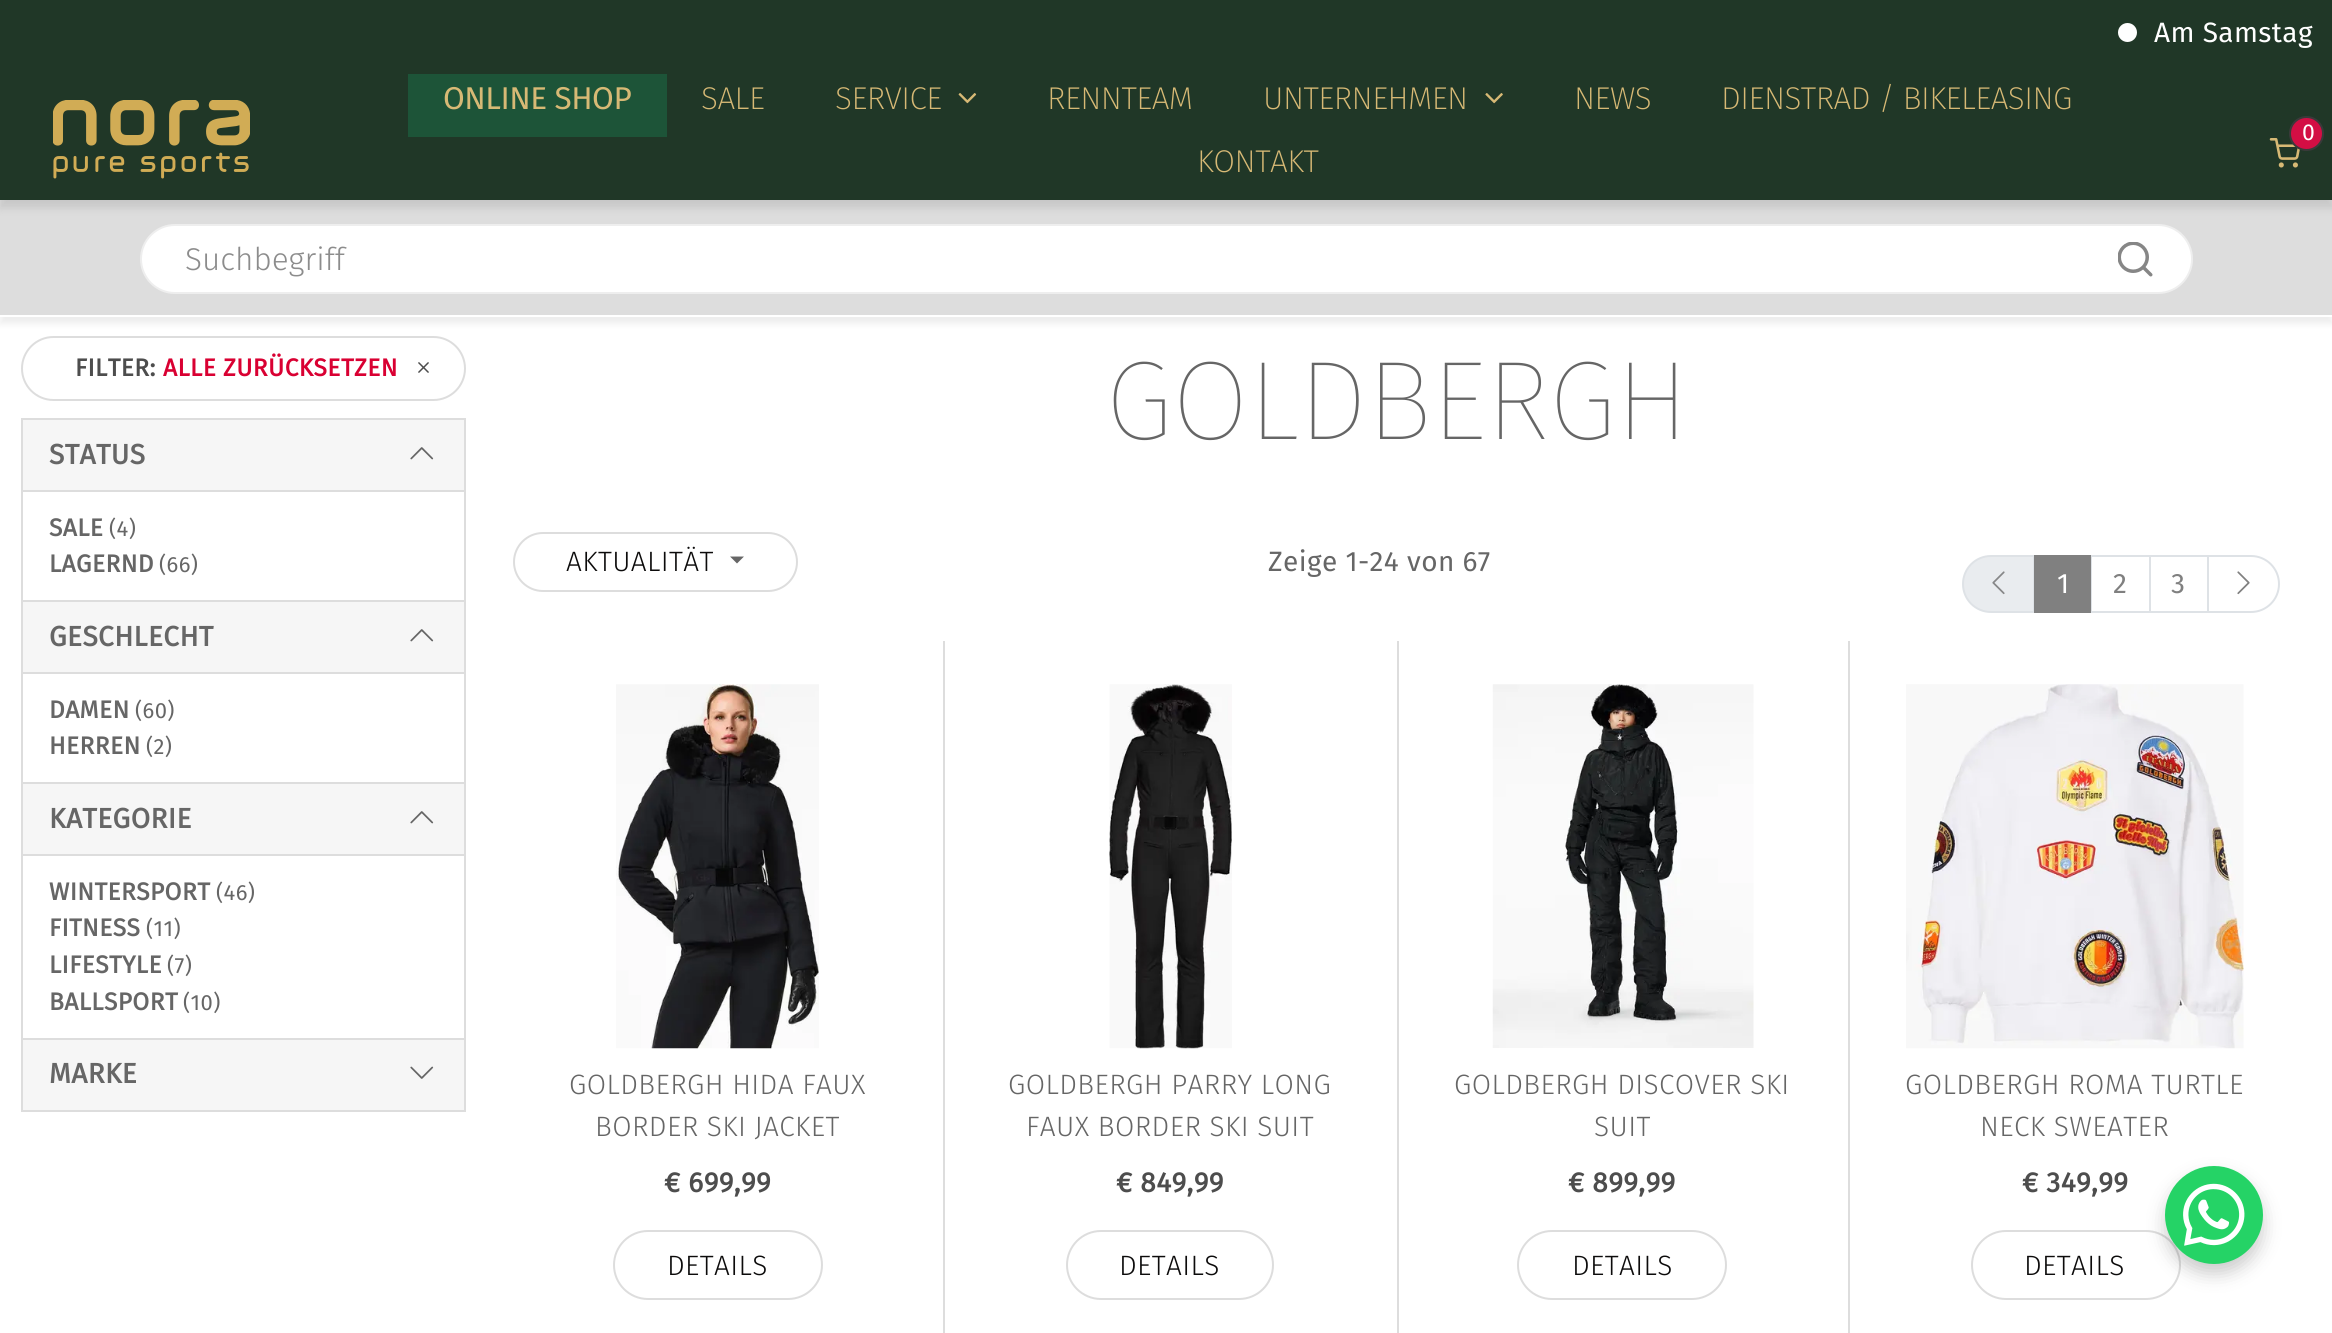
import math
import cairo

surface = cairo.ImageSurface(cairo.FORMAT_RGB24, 2332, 1333)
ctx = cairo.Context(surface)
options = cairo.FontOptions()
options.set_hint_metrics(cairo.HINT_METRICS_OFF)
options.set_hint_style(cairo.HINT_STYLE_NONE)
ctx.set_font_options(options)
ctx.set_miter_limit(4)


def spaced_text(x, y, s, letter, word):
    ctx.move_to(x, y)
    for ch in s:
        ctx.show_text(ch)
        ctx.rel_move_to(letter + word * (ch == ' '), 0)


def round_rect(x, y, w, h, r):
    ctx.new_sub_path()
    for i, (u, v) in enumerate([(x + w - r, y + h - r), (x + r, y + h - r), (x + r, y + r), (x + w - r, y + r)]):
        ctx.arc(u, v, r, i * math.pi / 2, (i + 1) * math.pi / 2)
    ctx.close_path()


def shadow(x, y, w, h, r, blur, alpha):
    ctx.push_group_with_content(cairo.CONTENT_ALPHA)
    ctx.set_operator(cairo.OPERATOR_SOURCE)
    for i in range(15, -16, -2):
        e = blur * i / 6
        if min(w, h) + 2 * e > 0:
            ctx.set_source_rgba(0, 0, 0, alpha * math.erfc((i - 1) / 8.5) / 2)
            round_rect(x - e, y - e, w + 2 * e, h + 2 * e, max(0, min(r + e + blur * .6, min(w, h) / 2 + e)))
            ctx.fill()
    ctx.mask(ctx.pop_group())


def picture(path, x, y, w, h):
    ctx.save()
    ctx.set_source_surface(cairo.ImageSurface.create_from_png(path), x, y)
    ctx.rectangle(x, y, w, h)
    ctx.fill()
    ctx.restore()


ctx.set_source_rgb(1, 1, 1)
ctx.paint()
ctx.set_source_rgb(0.125, 0.216, 0.153)
ctx.rectangle(0, 0, 2332, 74)
ctx.fill()
ctx.set_source_rgb(1, 1, 1)
ctx.arc(2127.5, 32.5, 9.5, 0, 2 * math.pi)
ctx.fill()
ctx.select_font_face("Fira Sans")
ctx.set_font_size(28)
spaced_text(2154, 42, "Am Samstag", 0.4, 0)
ctx.set_source_rgb(0, 0, 0)
shadow(0, 207, 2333, 117, 0, 3.5, 0.07)
ctx.set_source_rgb(0.867, 0.867, 0.867)
ctx.rectangle(0, 200, 2332, 115)
ctx.fill()
ctx.set_source_rgb(0, 0, 0)
shadow(0, 82, 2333, 126, 0, 4.5, 0.1)
ctx.set_source_rgb(0.125, 0.216, 0.153)
ctx.rectangle(0, 74, 2332, 126)
ctx.fill()
picture("img1.png", 53, 100, 197, 79)
ctx.set_source_rgb(0.114, 0.329, 0.22)
ctx.rectangle(408, 74, 259, 63)
ctx.fill()
ctx.set_font_size(31.5)
ctx.set_source_rgb(0.843, 0.725, 0.459)
spaced_text(443, 109, "ONLINE SHOP", -0.5, 0)
ctx.select_font_face("Fira Sans ExtraLight")
spaced_text(701, 109, "SALE", -0.5, 0)
spaced_text(835, 109, "SERVICE", -0.5, 0)
picture("img2.png", 958, 93, 19, 11)
spaced_text(1047, 109, "RENNTEAM", -0.5, 0)
spaced_text(1263, 109, "UNTERNEHMEN", -0.5, 0)
picture("img3.png", 1485, 93, 18, 11)
spaced_text(1574, 109, "NEWS", -0.5, 0)
spaced_text(1721, 109, "DIENSTRAD / BIKELEASING", -0.5, 0)
spaced_text(1197, 172, "KONTAKT", -0.5, 0)
picture("img4.png", 2269, 138, 31, 30)
ctx.set_source_rgb(0.827, 0.055, 0.267)
ctx.arc(2306.5, 133.5, 16.5, 0, 2 * math.pi)
ctx.fill_preserve()
ctx.set_source_rgb(0.227, 0.227, 0.227)
ctx.stroke()
ctx.select_font_face("Fira Sans")
ctx.set_font_size(23)
ctx.set_source_rgb(1, 1, 1)
spaced_text(2302, 140, "0", 0.4, 0)
round_rect(141, 225, 2051, 68, 34)
ctx.fill_preserve()
ctx.set_source_rgb(0.933, 0.933, 0.933)
ctx.stroke()
ctx.select_font_face("Fira Sans Light")
ctx.set_font_size(31.5)
ctx.set_source_rgb(0.549, 0.549, 0.549)
ctx.move_to(185, 270)
ctx.show_text("Suchbegriff")
picture("img5.png", 2118, 242, 35, 35)
ctx.set_source_rgb(1, 1, 1)
ctx.rectangle(0, 315, 2332, 2)
ctx.fill()
round_rect(22, 337, 443, 63, 31.5)
ctx.set_source_rgb(0.867, 0.867, 0.867)
ctx.stroke()
ctx.select_font_face("Fira Sans", cairo.FONT_SLANT_NORMAL, cairo.FONT_WEIGHT_BOLD)
ctx.set_font_size(24.5)
ctx.set_source_rgb(0.302, 0.302, 0.302)
spaced_text(75, 376, "FILTER:", 0.4, 0)
ctx.set_source_rgb(0.851, 0, 0.196)
spaced_text(163, 376, "ALLE ZURÜCKSETZEN", 0.4, 0)
picture("img6.png", 418, 362, 11, 11)
ctx.set_source_rgb(0.961, 0.961, 0.961)
ctx.rectangle(22, 419, 443, 72)
ctx.fill_preserve()
ctx.set_source_rgb(0.867, 0.867, 0.867)
ctx.stroke()
ctx.set_font_size(28)
ctx.set_source_rgb(0.4, 0.4, 0.4)
spaced_text(49, 464, "STATUS", 0.4, 0)
picture("img7.png", 410, 447, 24, 13)
ctx.set_source_rgb(0.867, 0.867, 0.867)
ctx.rectangle(464, 492, 2, 619)
ctx.fill()
ctx.rectangle(21, 600, 445, 2)
ctx.fill()
ctx.rectangle(21, 492, 2, 110)
ctx.fill()
ctx.set_font_size(24.5)
ctx.set_source_rgb(0.4, 0.4, 0.4)
spaced_text(49, 536, "SALE", 0.4, 0)
ctx.select_font_face("Fira Sans")
ctx.set_font_size(22)
spaced_text(109, 536, "(4)", 0.4, 0)
ctx.select_font_face("Fira Sans", cairo.FONT_SLANT_NORMAL, cairo.FONT_WEIGHT_BOLD)
ctx.set_font_size(24.5)
spaced_text(49, 572, "LAGERND", 0.4, 0)
ctx.select_font_face("Fira Sans")
ctx.set_font_size(22)
spaced_text(159, 572, "(66)", 0.4, 0)
ctx.set_source_rgb(0.961, 0.961, 0.961)
ctx.rectangle(23, 602, 441, 70)
ctx.fill()
ctx.set_source_rgb(0.867, 0.867, 0.867)
ctx.rectangle(21, 672, 445, 2)
ctx.fill()
ctx.rectangle(21, 602, 2, 72)
ctx.fill()
ctx.select_font_face("Fira Sans", cairo.FONT_SLANT_NORMAL, cairo.FONT_WEIGHT_BOLD)
ctx.set_font_size(28)
ctx.set_source_rgb(0.4, 0.4, 0.4)
spaced_text(49, 646, "GESCHLECHT", 0.4, 0)
picture("img7.png", 410, 629, 24, 13)
ctx.set_source_rgb(0.867, 0.867, 0.867)
ctx.rectangle(21, 782, 445, 2)
ctx.fill()
ctx.rectangle(21, 674, 2, 110)
ctx.fill()
ctx.set_font_size(24.5)
ctx.set_source_rgb(0.4, 0.4, 0.4)
spaced_text(49, 718, "DAMEN", 0.4, 0)
ctx.select_font_face("Fira Sans")
ctx.set_font_size(22)
spaced_text(135, 718, "(60)", 0.4, 0)
ctx.select_font_face("Fira Sans", cairo.FONT_SLANT_NORMAL, cairo.FONT_WEIGHT_BOLD)
ctx.set_font_size(24.5)
spaced_text(49, 754, "HERREN", 0.4, 0)
ctx.select_font_face("Fira Sans")
ctx.set_font_size(22)
spaced_text(146, 754, "(2)", 0.4, 0)
ctx.set_source_rgb(0.961, 0.961, 0.961)
ctx.rectangle(23, 784, 441, 70)
ctx.fill()
ctx.set_source_rgb(0.867, 0.867, 0.867)
ctx.rectangle(21, 854, 445, 2)
ctx.fill()
ctx.rectangle(21, 784, 2, 72)
ctx.fill()
ctx.select_font_face("Fira Sans", cairo.FONT_SLANT_NORMAL, cairo.FONT_WEIGHT_BOLD)
ctx.set_font_size(28)
ctx.set_source_rgb(0.4, 0.4, 0.4)
spaced_text(49, 828, "KATEGORIE", 0.4, 0)
picture("img7.png", 410, 811, 24, 13)
ctx.set_source_rgb(0.867, 0.867, 0.867)
ctx.rectangle(21, 1038, 445, 2)
ctx.fill()
ctx.rectangle(21, 856, 2, 184)
ctx.fill()
ctx.set_font_size(24.5)
ctx.set_source_rgb(0.4, 0.4, 0.4)
spaced_text(49, 900, "WINTERSPORT", 0.4, 0)
ctx.select_font_face("Fira Sans")
ctx.set_font_size(22)
spaced_text(216, 900, "(46)", 0.4, 0)
ctx.select_font_face("Fira Sans", cairo.FONT_SLANT_NORMAL, cairo.FONT_WEIGHT_BOLD)
ctx.set_font_size(24.5)
spaced_text(49, 936, "FITNESS", 0.4, 0)
ctx.select_font_face("Fira Sans")
ctx.set_font_size(22)
spaced_text(146, 936, "(11)", 0.4, 0)
ctx.select_font_face("Fira Sans", cairo.FONT_SLANT_NORMAL, cairo.FONT_WEIGHT_BOLD)
ctx.set_font_size(24.5)
spaced_text(49, 973, "LIFESTYLE", 0.4, 0)
ctx.select_font_face("Fira Sans")
ctx.set_font_size(22)
spaced_text(167, 973, "(7)", 0.4, 0)
ctx.select_font_face("Fira Sans", cairo.FONT_SLANT_NORMAL, cairo.FONT_WEIGHT_BOLD)
ctx.set_font_size(24.5)
spaced_text(49, 1010, "BALLSPORT", 0.4, 0)
ctx.select_font_face("Fira Sans")
ctx.set_font_size(22)
spaced_text(183, 1010, "(10)", 0.4, 0)
ctx.set_source_rgb(0.961, 0.961, 0.961)
ctx.rectangle(23, 1040, 441, 70)
ctx.fill()
ctx.set_source_rgb(0.867, 0.867, 0.867)
ctx.rectangle(21, 1110, 445, 2)
ctx.fill()
ctx.rectangle(21, 1040, 2, 71)
ctx.fill()
ctx.select_font_face("Fira Sans", cairo.FONT_SLANT_NORMAL, cairo.FONT_WEIGHT_BOLD)
ctx.set_font_size(28)
ctx.set_source_rgb(0.4, 0.4, 0.4)
spaced_text(49, 1083, "MARKE", 0.4, 0)
picture("img8.png", 410, 1066, 24, 13)
ctx.select_font_face("Fira Sans Thin")
ctx.set_font_size(112)
spaced_text(1105, 439, "GOLDBERGH", -1, 0)
round_rect(514, 533, 283, 58, 29)
ctx.set_source_rgb(0.867, 0.867, 0.867)
ctx.stroke()
ctx.select_font_face("Fira Sans Light")
ctx.set_font_size(28)
ctx.set_source_rgb(0.047, 0.043, 0.043)
spaced_text(566, 571, "AKTUALITÄT", 0.4, 0)
ctx.set_source_rgb(0.4, 0.4, 0.4)
ctx.new_path()
ctx.move_to(730, 556.5)
ctx.line_to(744, 556.5)
ctx.line_to(737, 563.5)
ctx.close_path()
ctx.fill()
ctx.select_font_face("Fira Sans")
spaced_text(1268, 571, "Zeige 1-24 von 67", 0.4, 0)
ctx.set_source_rgb(0.914, 0.925, 0.937)
ctx.new_path()
ctx.move_to(1991, 556)
ctx.line_to(2034, 556)
ctx.line_to(2034, 612)
ctx.line_to(1991, 612)
ctx.curve_to(1975.5, 612, 1963, 599.5, 1963, 584)
ctx.curve_to(1963, 568.5, 1975.5, 556, 1991, 556)
ctx.close_path()
ctx.fill_preserve()
ctx.set_source_rgb(0.871, 0.886, 0.902)
ctx.stroke()
picture("img9.png", 1992, 571, 13, 24)
ctx.rectangle(2091, 556, 59, 56)
ctx.stroke()
ctx.set_source_rgb(0.502, 0.502, 0.502)
ctx.rectangle(2034, 555, 57, 58)
ctx.fill()
ctx.set_source_rgb(1, 1, 1)
spaced_text(2057, 593, "1", 0.4, 0)
ctx.set_source_rgb(0.502, 0.502, 0.502)
spaced_text(2113, 593, "2", 0.4, 0)
ctx.rectangle(2150, 556, 58, 56)
ctx.set_source_rgb(0.871, 0.886, 0.902)
ctx.stroke()
ctx.set_source_rgb(0.502, 0.502, 0.502)
spaced_text(2171, 593, "3", 0.4, 0)
ctx.set_source_rgb(1, 1, 1)
ctx.new_path()
ctx.move_to(2208, 556)
ctx.line_to(2251, 556)
ctx.curve_to(2266.5, 556, 2279, 568.5, 2279, 584)
ctx.curve_to(2279, 599.5, 2266.5, 612, 2251, 612)
ctx.line_to(2208, 612)
ctx.close_path()
ctx.fill_preserve()
ctx.set_source_rgb(0.871, 0.886, 0.902)
ctx.stroke()
picture("img10.png", 2237, 571, 13, 24)
picture("img11.png", 616, 684, 203, 365)
ctx.select_font_face("Fira Sans Light")
ctx.set_source_rgb(0.4, 0.4, 0.4)
spaced_text(569, 1094, "GOLDBERGH HIDA FAUX", 0.4, 0)
spaced_text(595, 1136, "BORDER SKI JACKET", 0.4, 0)
ctx.select_font_face("Fira Sans", cairo.FONT_SLANT_NORMAL, cairo.FONT_WEIGHT_BOLD)
ctx.set_source_rgb(0.302, 0.302, 0.302)
spaced_text(664, 1192, "€ 699,99", 0.4, 0)
round_rect(614, 1231, 208, 68, 34)
ctx.set_source_rgb(0.867, 0.867, 0.867)
ctx.stroke()
ctx.select_font_face("Fira Sans Light")
ctx.set_source_rgb(0.047, 0.043, 0.043)
spaced_text(667, 1275, "DETAILS", 0.4, 0)
ctx.set_source_rgb(0.867, 0.867, 0.867)
ctx.rectangle(943, 641, 2, 692)
ctx.fill()
picture("img12.png", 1109, 684, 123, 365)
ctx.set_source_rgb(0.4, 0.4, 0.4)
spaced_text(1008, 1094, "GOLDBERGH PARRY LONG", 0.4, 0)
spaced_text(1026, 1136, "FAUX BORDER SKI SUIT", 0.4, 0)
ctx.select_font_face("Fira Sans", cairo.FONT_SLANT_NORMAL, cairo.FONT_WEIGHT_BOLD)
ctx.set_source_rgb(0.302, 0.302, 0.302)
spaced_text(1116, 1192, "€ 849,99", 0.4, 0)
round_rect(1067, 1231, 206, 68, 34)
ctx.set_source_rgb(0.867, 0.867, 0.867)
ctx.stroke()
ctx.select_font_face("Fira Sans Light")
ctx.set_source_rgb(0.047, 0.043, 0.043)
spaced_text(1119, 1275, "DETAILS", 0.4, 0)
ctx.set_source_rgb(0.867, 0.867, 0.867)
ctx.rectangle(1397, 641, 2, 692)
ctx.fill()
picture("img13.png", 1492, 684, 262, 364)
ctx.set_source_rgb(0.4, 0.4, 0.4)
spaced_text(1454, 1094, "GOLDBERGH DISCOVER SKI", 0.4, 0)
spaced_text(1594, 1136, "SUIT", 0.4, 0)
ctx.select_font_face("Fira Sans", cairo.FONT_SLANT_NORMAL, cairo.FONT_WEIGHT_BOLD)
ctx.set_source_rgb(0.302, 0.302, 0.302)
spaced_text(1568, 1192, "€ 899,99", 0.4, 0)
round_rect(1518, 1231, 208, 68, 34)
ctx.set_source_rgb(0.867, 0.867, 0.867)
ctx.stroke()
ctx.select_font_face("Fira Sans Light")
ctx.set_source_rgb(0.047, 0.043, 0.043)
spaced_text(1572, 1275, "DETAILS", 0.4, 0)
ctx.set_source_rgb(0.867, 0.867, 0.867)
ctx.rectangle(1848, 641, 2, 692)
ctx.fill()
picture("img14.png", 1906, 684, 338, 365)
ctx.set_source_rgb(0.4, 0.4, 0.4)
spaced_text(1905, 1094, "GOLDBERGH ROMA TURTLE", 0.4, 0)
spaced_text(1980, 1136, "NECK SWEATER", 0.4, 0)
ctx.select_font_face("Fira Sans", cairo.FONT_SLANT_NORMAL, cairo.FONT_WEIGHT_BOLD)
ctx.set_source_rgb(0.302, 0.302, 0.302)
spaced_text(2022, 1192, "€ 349,99", 0.4, 0)
round_rect(1972, 1231, 208, 68, 34)
ctx.set_source_rgb(0.867, 0.867, 0.867)
ctx.stroke()
ctx.select_font_face("Fira Sans Light")
ctx.set_source_rgb(0.047, 0.043, 0.043)
spaced_text(2024, 1275, "DETAILS", 0.4, 0)
ctx.set_source_rgb(0, 0, 0)
shadow(2165, 1176, 98, 98, 49, 9, 0.2)
ctx.set_source_rgb(0.145, 0.827, 0.4)
ctx.arc(2214, 1215, 49, 0, 2 * math.pi)
ctx.fill()
picture("img15.png", 2183, 1183, 62, 63)
surface.write_to_png("page.png")
